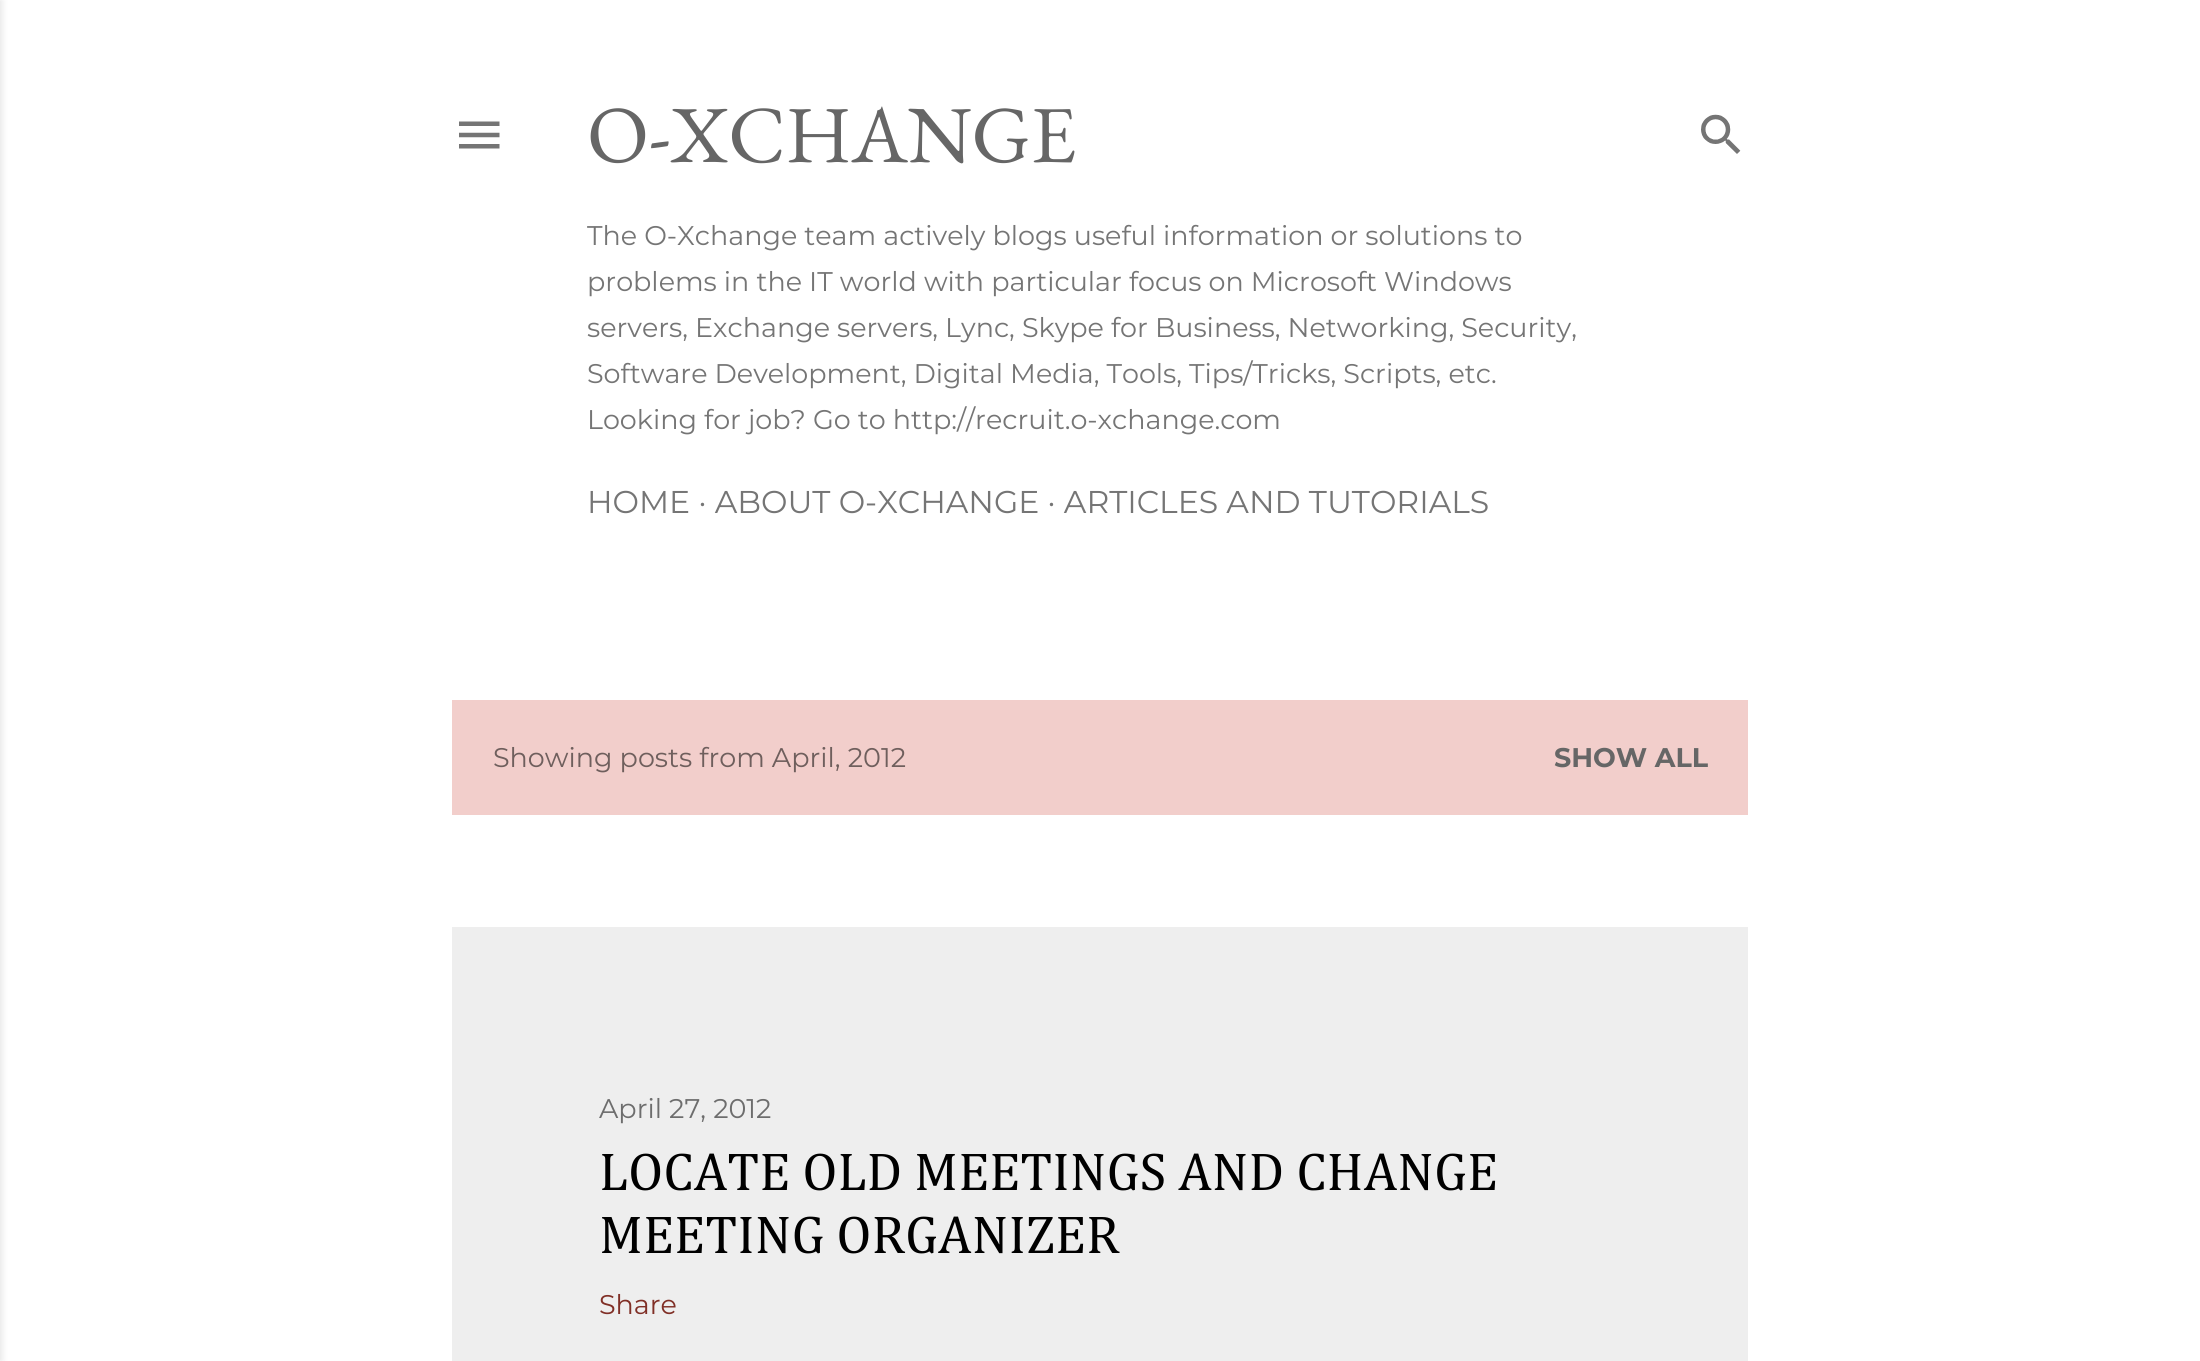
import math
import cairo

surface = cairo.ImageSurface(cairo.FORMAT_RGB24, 2200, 1361)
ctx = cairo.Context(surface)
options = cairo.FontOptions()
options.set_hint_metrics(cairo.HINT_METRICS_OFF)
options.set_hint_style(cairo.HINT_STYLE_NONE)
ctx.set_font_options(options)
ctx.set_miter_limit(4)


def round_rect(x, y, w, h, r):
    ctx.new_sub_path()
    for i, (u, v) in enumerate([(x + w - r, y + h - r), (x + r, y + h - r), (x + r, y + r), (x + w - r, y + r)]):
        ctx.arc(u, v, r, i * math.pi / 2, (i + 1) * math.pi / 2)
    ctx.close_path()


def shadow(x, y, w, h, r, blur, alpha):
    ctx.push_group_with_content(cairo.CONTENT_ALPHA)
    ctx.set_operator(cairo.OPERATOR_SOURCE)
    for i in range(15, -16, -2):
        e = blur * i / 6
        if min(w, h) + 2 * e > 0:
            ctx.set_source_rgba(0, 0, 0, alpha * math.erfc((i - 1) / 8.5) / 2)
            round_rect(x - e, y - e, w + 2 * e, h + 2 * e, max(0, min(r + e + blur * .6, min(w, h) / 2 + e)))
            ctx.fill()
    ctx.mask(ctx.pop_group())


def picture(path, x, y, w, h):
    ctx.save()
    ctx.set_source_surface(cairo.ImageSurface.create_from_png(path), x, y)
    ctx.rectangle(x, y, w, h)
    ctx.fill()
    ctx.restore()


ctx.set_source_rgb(1, 1, 1)
ctx.paint()
ctx.set_source_rgb(0, 0, 0)
shadow(-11, 0, 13, 1361, 0, 3.5, 0.1)
picture("img1.png", 459, 121, 41, 28)
ctx.select_font_face("EB Garamond")
ctx.set_font_size(81)
ctx.set_source_rgb(0.4, 0.4, 0.4)
ctx.move_to(587, 162)
ctx.show_text("O-XCHANGE")
ctx.select_font_face("Montserrat")
ctx.set_font_size(27)
ctx.set_source_rgb(0.459, 0.459, 0.459)
ctx.move_to(587, 245)
ctx.show_text("The O-Xchange team actively blogs useful information or solutions to")
ctx.move_to(587, 291)
ctx.show_text("problems in the IT world with particular focus on Microsoft Windows")
ctx.move_to(587, 337)
ctx.show_text("servers, Exchange servers, Lync, Skype for Business, Networking, Security,")
ctx.move_to(587, 383)
ctx.show_text("Software Development, Digital Media, Tools, Tips/Tricks, Scripts, etc.")
ctx.move_to(587, 429)
ctx.show_text("Looking for job? Go to http://recruit.o-xchange.com")
ctx.set_font_size(31.5)
ctx.move_to(587, 513)
ctx.show_text("HOME · ABOUT O-XCHANGE · ARTICLES AND TUTORIALS")
picture("img2.png", 1701, 114, 40, 40)
ctx.set_source_rgb(0.949, 0.808, 0.796)
ctx.rectangle(452, 700, 1296, 115)
ctx.fill()
ctx.set_font_size(27)
ctx.set_source_rgb(0.435, 0.373, 0.365)
ctx.move_to(493, 767)
ctx.show_text("Showing posts from April, 2012")
ctx.select_font_face("Montserrat", cairo.FONT_SLANT_NORMAL, cairo.FONT_WEIGHT_BOLD)
ctx.set_source_rgb(0.4, 0.4, 0.4)
ctx.move_to(1554, 767)
ctx.show_text("SHOW ALL")
ctx.set_source_rgb(0.933, 0.933, 0.933)
ctx.rectangle(452, 927, 1296, 434)
ctx.fill()
ctx.select_font_face("Montserrat")
ctx.set_source_rgb(0.427, 0.427, 0.427)
ctx.move_to(599, 1118)
ctx.show_text("April 27, 2012")
ctx.select_font_face("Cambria")
ctx.set_font_size(54)
ctx.set_source_rgb(0, 0, 0)
ctx.move_to(599, 1190)
ctx.show_text("LOCATE OLD MEETINGS AND CHANGE")
ctx.move_to(599, 1253)
ctx.show_text("MEETING ORGANIZER")
ctx.select_font_face("Montserrat")
ctx.set_font_size(27)
ctx.set_source_rgb(0.502, 0.184, 0.149)
ctx.move_to(599, 1314)
ctx.show_text("Share")
surface.write_to_png("page.png")
